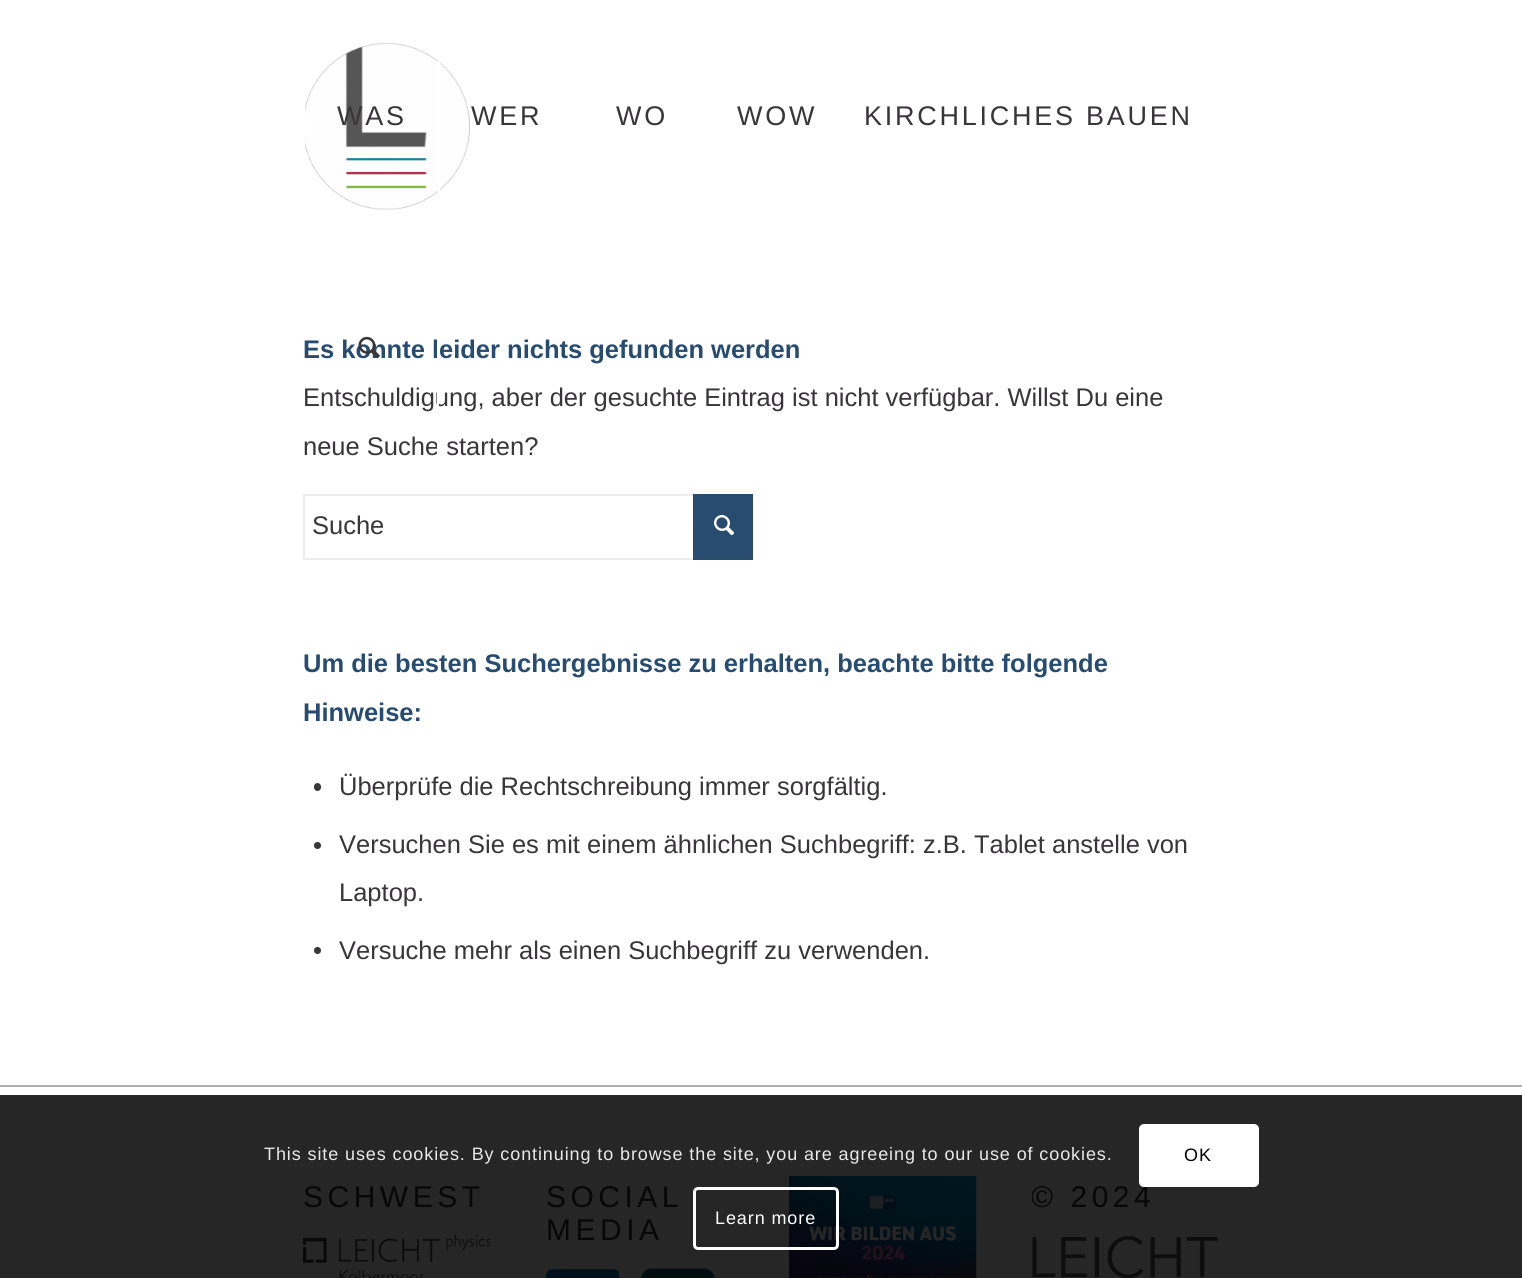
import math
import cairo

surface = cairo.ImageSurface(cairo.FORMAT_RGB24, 1522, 1278)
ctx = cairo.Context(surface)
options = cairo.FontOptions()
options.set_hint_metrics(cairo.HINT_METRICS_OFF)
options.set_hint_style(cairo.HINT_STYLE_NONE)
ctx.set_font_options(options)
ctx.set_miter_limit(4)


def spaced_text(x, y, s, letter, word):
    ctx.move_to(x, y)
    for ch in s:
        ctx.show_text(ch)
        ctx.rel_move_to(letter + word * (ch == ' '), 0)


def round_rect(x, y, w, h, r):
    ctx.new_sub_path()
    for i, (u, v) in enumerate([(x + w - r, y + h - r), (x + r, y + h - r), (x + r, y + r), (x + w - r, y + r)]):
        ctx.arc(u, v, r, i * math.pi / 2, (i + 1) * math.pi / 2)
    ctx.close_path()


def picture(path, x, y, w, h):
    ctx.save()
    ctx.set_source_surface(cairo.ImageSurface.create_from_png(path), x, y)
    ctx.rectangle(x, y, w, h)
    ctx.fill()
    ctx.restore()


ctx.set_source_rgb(1, 1, 1)
ctx.paint()
ctx.set_source_rgb(0.149, 0.149, 0.149)
ctx.rectangle(0, 1095, 1522, 183)
ctx.fill()
picture("img1.png", 305, 43, 165, 167)
ctx.select_font_face("Liberation Sans")
ctx.set_font_size(27)
ctx.set_source_rgb(0.22, 0.212, 0.22)
spaced_text(337, 125, "WAS", 2.75, 0)
ctx.set_source_rgb(1, 1, 1)
ctx.rectangle(438, 60, 2, 132)
ctx.fill()
ctx.set_source_rgb(0.22, 0.212, 0.22)
spaced_text(471, 125, "WER", 2.75, 0)
spaced_text(616, 125, "WO", 2.75, 0)
spaced_text(737, 125, "WOW", 2.75, 0)
spaced_text(864, 125, "KIRCHLICHES BAUEN", 2.75, 0)
ctx.select_font_face("Liberation Sans", cairo.FONT_SLANT_NORMAL, cairo.FONT_WEIGHT_BOLD)
ctx.set_font_size(25.5)
ctx.set_source_rgb(0.153, 0.298, 0.439)
ctx.move_to(303, 358)
ctx.show_text("Es konnte leider nichts gefunden werden")
ctx.select_font_face("Liberation Sans")
ctx.set_source_rgb(0.22, 0.212, 0.22)
ctx.move_to(303, 406)
ctx.show_text("Entschuldigung, aber der gesuchte Eintrag ist nicht verfügbar. Willst Du eine")
ctx.move_to(303, 455)
ctx.show_text("neue Suche starten?")
ctx.set_source_rgb(1, 1, 1)
ctx.rectangle(437, 339, 2, 115)
ctx.fill()
picture("img2.png", 358, 336, 22, 23)
ctx.rectangle(304, 495, 448, 64)
ctx.set_source_rgb(0.922, 0.922, 0.922)
ctx.stroke()
ctx.set_source_rgb(0.22, 0.212, 0.22)
ctx.move_to(312, 534)
ctx.show_text("Suche")
ctx.set_source_rgb(0.153, 0.298, 0.439)
ctx.rectangle(693, 494, 60, 66)
ctx.fill()
picture("img3.png", 714, 515, 21, 21)
ctx.select_font_face("Liberation Sans", cairo.FONT_SLANT_NORMAL, cairo.FONT_WEIGHT_BOLD)
ctx.move_to(303, 672)
ctx.show_text("Um die besten Suchergebnisse zu erhalten, beachte bitte folgende")
ctx.move_to(303, 721)
ctx.show_text("Hinweise:")
ctx.set_source_rgb(0.22, 0.212, 0.22)
round_rect(314, 783, 7, 8, 3.5)
ctx.fill()
ctx.select_font_face("Liberation Sans")
ctx.move_to(339, 795)
ctx.show_text("Überprüfe die Rechtschreibung immer sorgfältig.")
ctx.new_path()
ctx.arc(317.5, 845.5, 3.5, 0, 2 * math.pi)
ctx.fill()
ctx.move_to(339, 853)
ctx.show_text("Versuchen Sie es mit einem ähnlichen Suchbegriff: z.B. Tablet anstelle von")
ctx.move_to(339, 901)
ctx.show_text("Laptop.")
ctx.new_path()
ctx.arc(317.5, 950.5, 3.5, 0, 2 * math.pi)
ctx.fill()
ctx.move_to(339, 959)
ctx.show_text("Versuche mehr als einen Suchbegriff zu verwenden.")
ctx.set_source_rgb(0.69, 0.682, 0.69)
ctx.rectangle(0, 1085, 1522, 2)
ctx.fill()
ctx.set_font_size(30)
ctx.set_source_rgb(0.031, 0.031, 0.031)
spaced_text(303, 1207, "SCHWEST", 4.5, 0)
picture("img4.png", 303, 1234, 188, 44)
spaced_text(546, 1207, "SOCIAL", 4.5, 0)
spaced_text(546, 1240, "MEDIA", 4.5, 0)
picture("img5.png", 546, 1269, 74, 9)
picture("img6.png", 640, 1268, 75, 10)
picture("img7.png", 789, 1176, 188, 102)
ctx.save()
ctx.rectangle(1032, 1154, 188, 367)
ctx.clip()
spaced_text(1031, 1207, "© 2024", 4.5, 0)
ctx.restore()
picture("img8.png", 1032, 1236, 186, 42)
ctx.set_font_size(18)
ctx.set_source_rgb(0.914, 0.914, 0.914)
spaced_text(264, 1160, "This site uses cookies. By continuing to browse the site, you are agreeing to our use of cookies.", 0.9, 0)
ctx.set_source_rgb(1, 1, 1)
round_rect(1139, 1124, 120, 63, 5)
ctx.fill()
ctx.set_source_rgb(0, 0, 0)
spaced_text(1184, 1161, "OK", 0.9, 0)
round_rect(694.5, 1188.5, 143, 60, 3.5)
ctx.set_source_rgb(1, 1, 1)
ctx.set_line_width(3)
ctx.stroke()
spaced_text(715, 1224, "Learn more", 0.9, 0)
surface.write_to_png("page.png")
